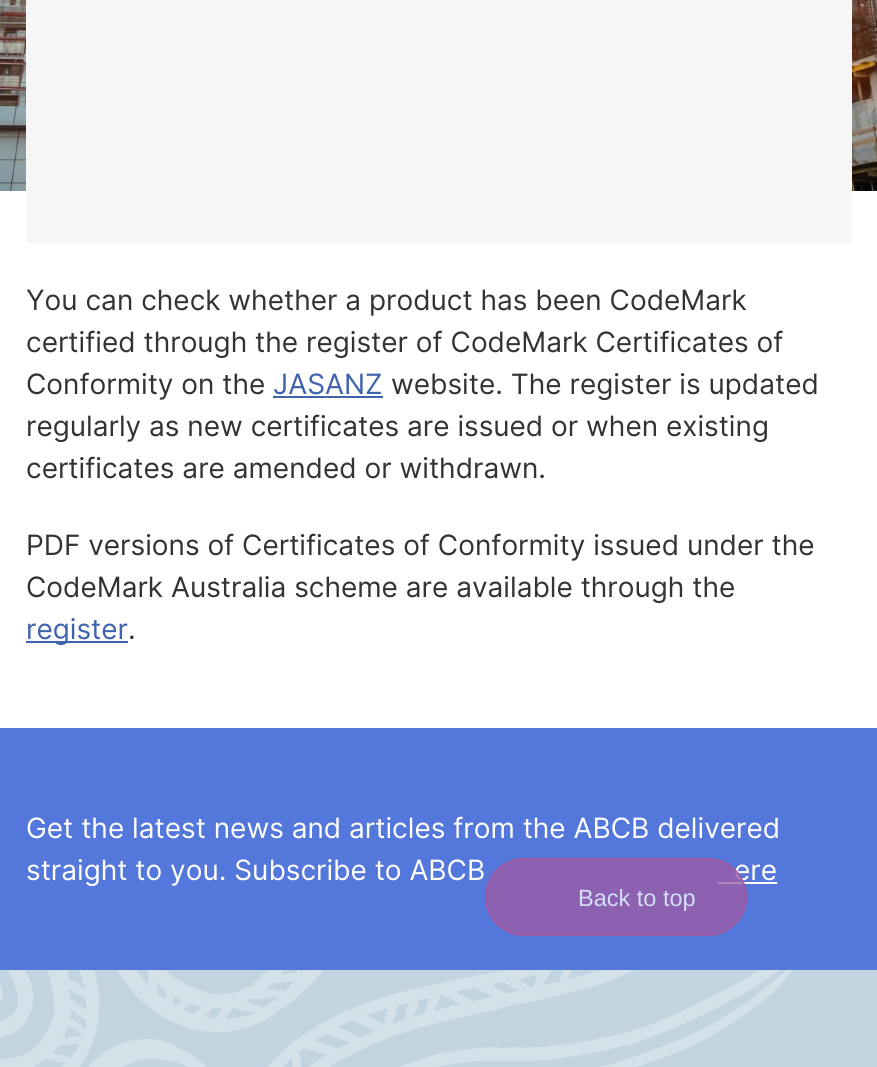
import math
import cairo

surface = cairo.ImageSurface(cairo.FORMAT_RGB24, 877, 1067)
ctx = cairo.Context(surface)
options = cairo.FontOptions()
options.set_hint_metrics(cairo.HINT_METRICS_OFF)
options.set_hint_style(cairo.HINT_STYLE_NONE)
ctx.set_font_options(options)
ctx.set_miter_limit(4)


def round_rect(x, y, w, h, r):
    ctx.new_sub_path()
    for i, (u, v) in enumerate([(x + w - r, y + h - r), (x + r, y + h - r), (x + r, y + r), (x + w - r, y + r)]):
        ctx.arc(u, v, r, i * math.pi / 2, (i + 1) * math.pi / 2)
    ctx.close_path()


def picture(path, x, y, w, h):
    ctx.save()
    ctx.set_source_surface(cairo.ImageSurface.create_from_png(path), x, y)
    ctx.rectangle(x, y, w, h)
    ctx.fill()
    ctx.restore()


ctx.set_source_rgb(1, 1, 1)
ctx.paint()
picture("img1.png", 0, 0, 877, 191)
ctx.set_source_rgb(0.961, 0.961, 0.961)
ctx.rectangle(26, 0, 826, 243)
ctx.fill()
ctx.select_font_face("Inter")
ctx.set_font_size(28)
ctx.set_source_rgb(0.2, 0.2, 0.2)
ctx.move_to(26, 310)
ctx.show_text("You can check whether a product has been CodeMark")
ctx.move_to(26, 352)
ctx.show_text("certified through the register of CodeMark Certificates of")
ctx.move_to(26, 394)
ctx.show_text("Conformity on the")
ctx.set_source_rgb(0.247, 0.384, 0.682)
ctx.move_to(273, 394)
ctx.show_text("JASANZ")
ctx.rectangle(273, 396, 110, 2)
ctx.fill()
ctx.set_source_rgb(0.2, 0.2, 0.2)
ctx.move_to(391, 394)
ctx.show_text("website. The register is updated")
ctx.move_to(26, 436)
ctx.show_text("regularly as new certificates are issued or when existing")
ctx.move_to(26, 478)
ctx.show_text("certificates are amended or withdrawn.")
ctx.move_to(26, 555)
ctx.show_text("PDF versions of Certificates of Conformity issued under the")
ctx.move_to(26, 597)
ctx.show_text("CodeMark Australia scheme are available through the")
ctx.set_source_rgb(0.247, 0.384, 0.682)
ctx.rectangle(26, 641, 102, 2)
ctx.fill()
ctx.move_to(26, 639)
ctx.show_text("register")
ctx.set_source_rgb(0.2, 0.2, 0.2)
ctx.move_to(128, 639)
ctx.show_text(".")
ctx.set_source_rgb(0.329, 0.467, 0.859)
ctx.rectangle(0, 728, 877, 242)
ctx.fill()
ctx.set_source_rgb(1, 1, 1)
ctx.move_to(26, 838)
ctx.show_text("Get the latest news and articles from the ABCB delivered")
ctx.move_to(26, 880)
ctx.show_text("straight to you. Subscribe to ABCB")
ctx.move_to(734, 880)
ctx.show_text("ere")
ctx.rectangle(718, 882, 59, 2)
ctx.fill()
ctx.set_source_rgb(0.757, 0.831, 0.878)
ctx.rectangle(0, 970, 877, 97)
ctx.fill()
picture("img2.png", 0, 970, 792, 97)
ctx.set_source_rgba(0.624, 0.353, 0.639, 0.75)
round_rect(485, 858, 262, 78, 39)
ctx.fill()
round_rect(486, 859, 260, 76, 38)
ctx.stroke()
ctx.select_font_face("Liberation Sans")
ctx.set_font_size(23.5)
ctx.set_source_rgb(0.831, 0.867, 0.965)
ctx.move_to(578, 906)
ctx.show_text("Back to top")
surface.write_to_png("page.png")
